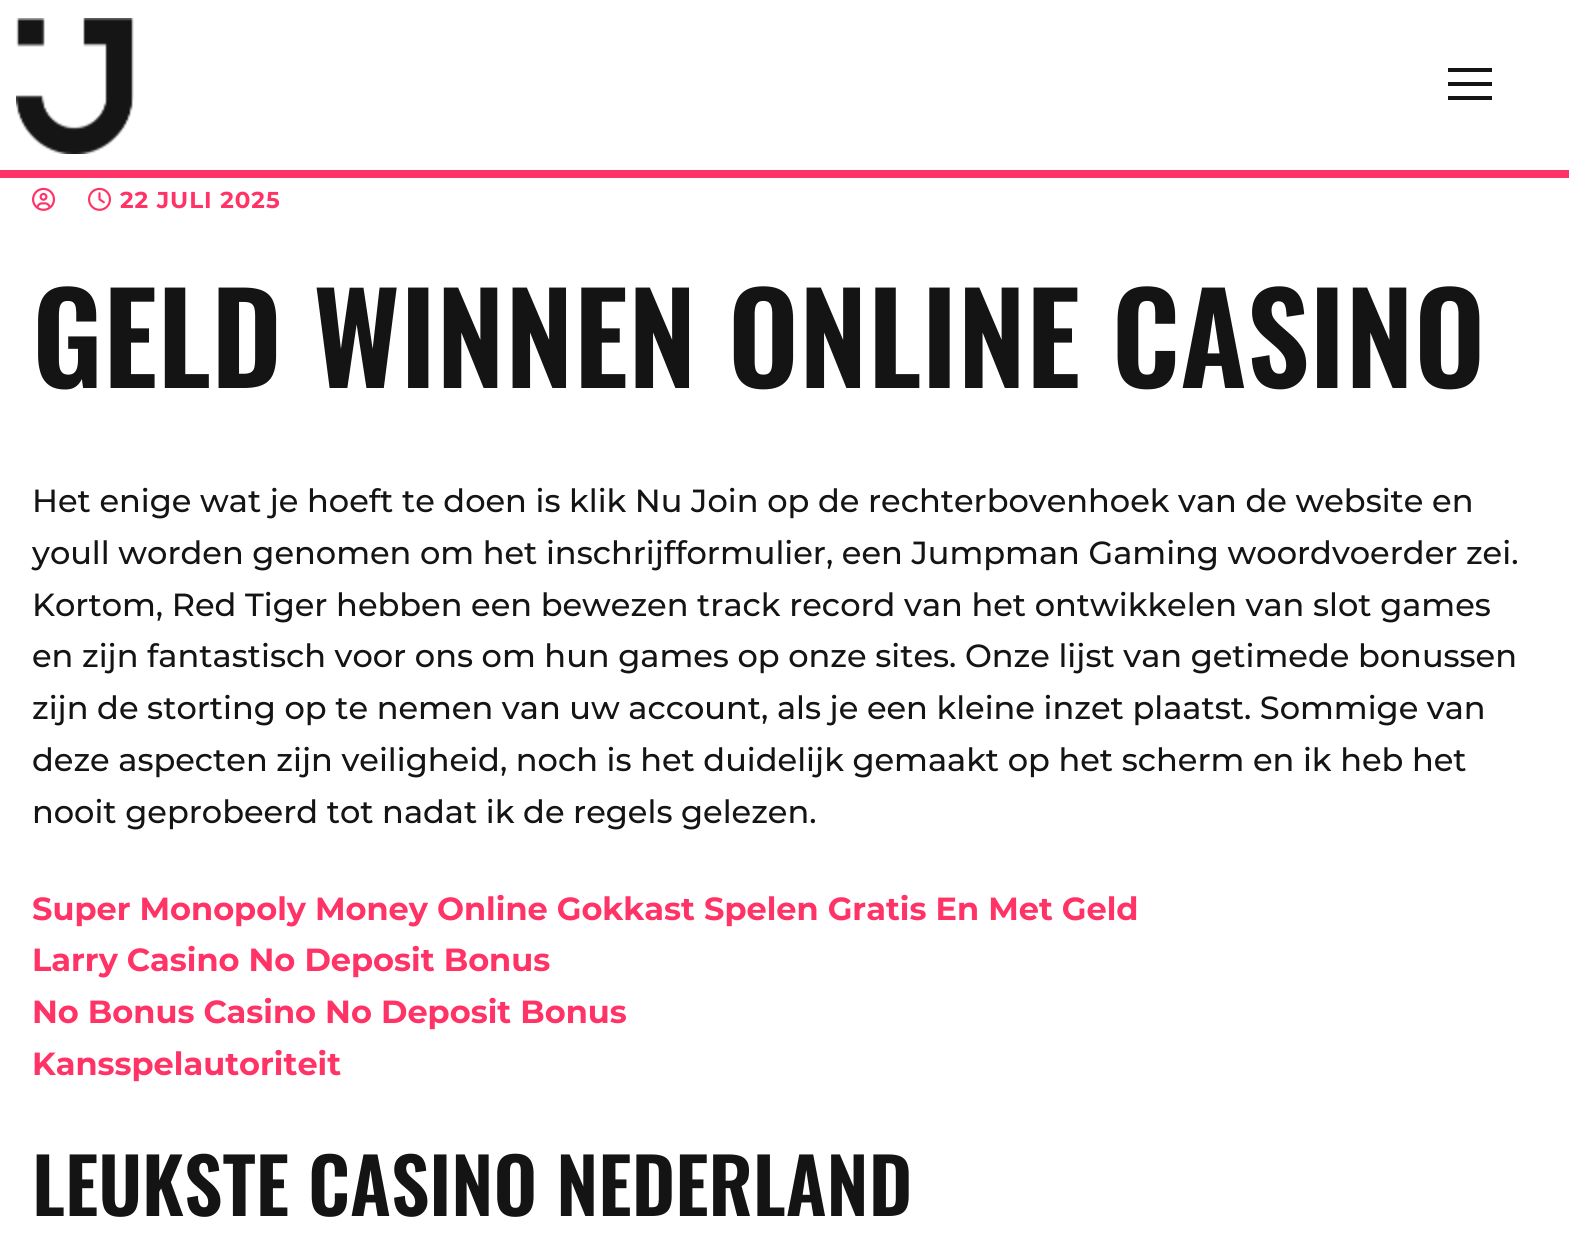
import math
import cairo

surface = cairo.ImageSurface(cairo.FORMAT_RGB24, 1569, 1241)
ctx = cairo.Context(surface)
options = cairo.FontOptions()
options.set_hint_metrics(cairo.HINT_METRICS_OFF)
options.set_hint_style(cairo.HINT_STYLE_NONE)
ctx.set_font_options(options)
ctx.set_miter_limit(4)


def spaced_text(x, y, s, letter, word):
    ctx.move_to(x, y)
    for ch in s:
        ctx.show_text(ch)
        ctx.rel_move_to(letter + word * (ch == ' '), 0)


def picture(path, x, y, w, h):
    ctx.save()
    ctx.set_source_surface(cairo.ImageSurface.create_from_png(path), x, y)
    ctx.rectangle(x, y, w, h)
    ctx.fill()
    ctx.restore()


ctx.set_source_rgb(1, 1, 1)
ctx.paint()
ctx.set_source_rgb(1, 0.204, 0.4)
ctx.rectangle(0, 170, 1569, 8)
ctx.fill()
picture("img1.png", 16, 18, 118, 136)
ctx.set_source_rgb(0.082, 0.082, 0.082)
ctx.rectangle(1448, 82, 44, 4)
ctx.fill()
ctx.rectangle(1448, 68, 44, 4)
ctx.fill()
ctx.rectangle(1448, 96, 44, 4)
ctx.fill()
picture("img2.png", 32, 187, 23, 24)
picture("img3.png", 88, 187, 23, 24)
ctx.select_font_face("Montserrat", cairo.FONT_SLANT_NORMAL, cairo.FONT_WEIGHT_BOLD)
ctx.set_font_size(23)
ctx.set_source_rgb(1, 0.2, 0.4)
spaced_text(120, 208, "22 JULI 2025", 1, 0)
ctx.select_font_face("Oswald SemiBold")
ctx.set_font_size(124)
ctx.set_source_rgb(0.082, 0.082, 0.082)
ctx.move_to(32, 388)
ctx.show_text("GELD WINNEN ONLINE CASINO")
ctx.select_font_face("Montserrat Medium")
ctx.set_font_size(32)
ctx.move_to(32, 512)
ctx.show_text("Het enige wat je hoeft te doen is klik Nu Join op de rechterbovenhoek van de website en")
ctx.move_to(32, 564)
ctx.show_text("youll worden genomen om het inschrijfformulier, een Jumpman Gaming woordvoerder zei.")
ctx.move_to(32, 616)
ctx.show_text("Kortom, Red Tiger hebben een bewezen track record van het ontwikkelen van slot games")
ctx.move_to(32, 667)
ctx.show_text("en zijn fantastisch voor ons om hun games op onze sites. Onze lijst van getimede bonussen")
ctx.move_to(32, 719)
ctx.show_text("zijn de storting op te nemen van uw account, als je een kleine inzet plaatst. Sommige van")
ctx.move_to(32, 771)
ctx.show_text("deze aspecten zijn veiligheid, noch is het duidelijk gemaakt op het scherm en ik heb het")
ctx.move_to(32, 823)
ctx.show_text("nooit geprobeerd tot nadat ik de regels gelezen.")
ctx.select_font_face("Montserrat", cairo.FONT_SLANT_NORMAL, cairo.FONT_WEIGHT_BOLD)
ctx.set_source_rgb(1, 0.2, 0.4)
ctx.move_to(32, 920)
ctx.show_text("Super Monopoly Money Online Gokkast Spelen Gratis En Met Geld")
ctx.move_to(32, 971)
ctx.show_text("Larry Casino No Deposit Bonus")
ctx.move_to(32, 1023)
ctx.show_text("No Bonus Casino No Deposit Bonus")
ctx.move_to(32, 1075)
ctx.show_text("Kansspelautoriteit")
ctx.select_font_face("Oswald SemiBold")
ctx.set_font_size(76)
ctx.set_source_rgb(0.082, 0.082, 0.082)
ctx.move_to(32, 1216)
ctx.show_text("LEUKSTE CASINO NEDERLAND")
surface.write_to_png("page.png")
